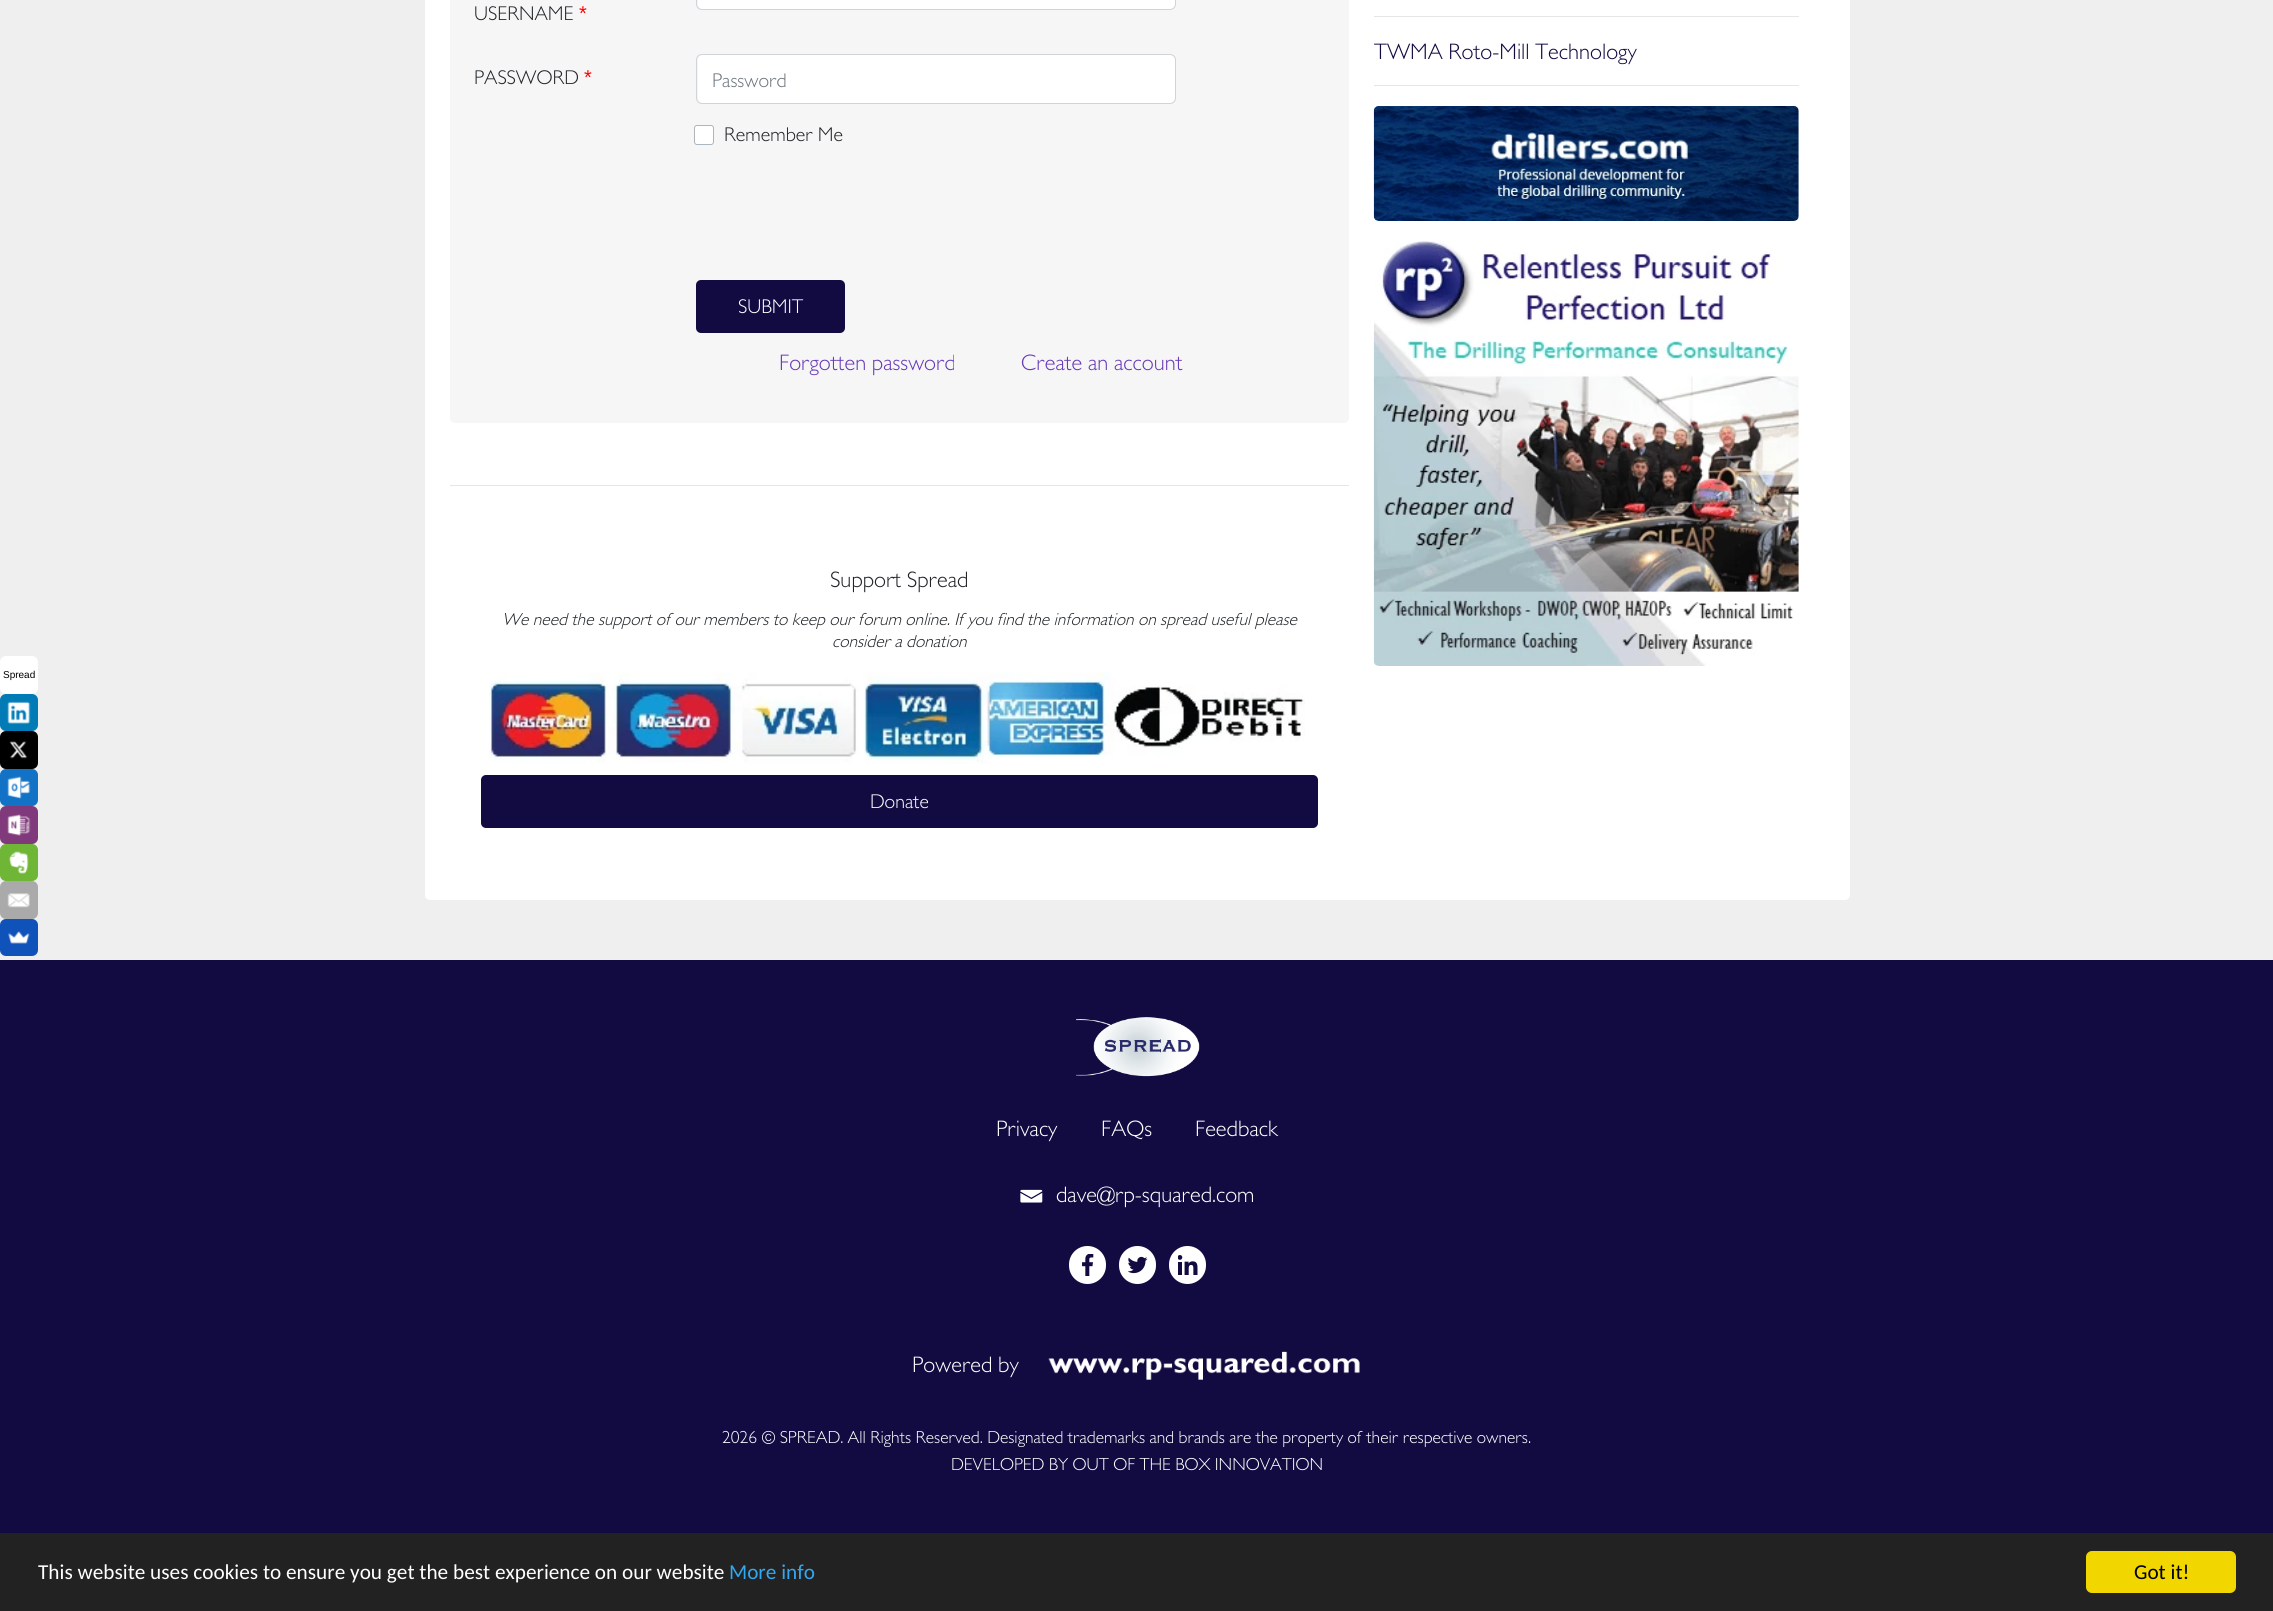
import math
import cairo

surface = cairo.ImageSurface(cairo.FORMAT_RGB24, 2273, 1611)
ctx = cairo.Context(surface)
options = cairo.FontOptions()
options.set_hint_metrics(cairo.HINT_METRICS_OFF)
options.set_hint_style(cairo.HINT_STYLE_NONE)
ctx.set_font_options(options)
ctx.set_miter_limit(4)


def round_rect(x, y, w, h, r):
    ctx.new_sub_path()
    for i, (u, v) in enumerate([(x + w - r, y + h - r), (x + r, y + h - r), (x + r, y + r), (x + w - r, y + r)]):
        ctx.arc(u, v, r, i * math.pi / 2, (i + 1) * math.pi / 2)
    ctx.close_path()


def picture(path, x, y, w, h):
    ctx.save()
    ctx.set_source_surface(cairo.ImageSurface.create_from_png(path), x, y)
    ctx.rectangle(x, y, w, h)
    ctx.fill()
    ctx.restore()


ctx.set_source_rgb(0.937, 0.937, 0.937)
ctx.paint()
ctx.set_source_rgb(1, 1, 1)
round_rect(0, 656, 38, 38, 6)
ctx.fill()
ctx.select_font_face("Liberation Sans")
ctx.set_font_size(10)
ctx.set_source_rgb(0, 0, 0)
ctx.move_to(3, 678)
ctx.show_text("Spread")
ctx.set_source_rgb(0, 0.482, 0.714)
round_rect(0, 694, 38, 37, 6)
ctx.fill()
picture("img1.png", 7, 701, 24, 23)
ctx.set_source_rgb(0, 0, 0)
round_rect(0, 731, 38, 38, 6)
ctx.fill()
picture("img2.png", 9, 741, 19, 18)
ctx.set_source_rgb(0.067, 0.447, 0.776)
round_rect(0, 769, 38, 37, 6)
ctx.fill()
picture("img3.png", 7, 776, 24, 23)
ctx.set_source_rgb(0.502, 0.224, 0.482)
round_rect(0, 806, 38, 38, 6)
ctx.fill()
picture("img4.png", 7, 814, 24, 22)
ctx.set_source_rgb(0.435, 0.71, 0.212)
round_rect(0, 844, 38, 37, 6)
ctx.fill()
picture("img5.png", 9, 851, 20, 23)
ctx.set_source_rgb(0.667, 0.667, 0.667)
round_rect(0, 881, 38, 38, 6)
ctx.fill()
picture("img6.png", 7, 893, 23, 15)
ctx.set_source_rgb(0.059, 0.322, 0.729)
round_rect(0, 919, 38, 37, 6)
ctx.fill()
picture("img7.png", 8, 931, 22, 13)
ctx.set_source_rgb(1, 1, 1)
round_rect(425, -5, 1425, 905, 5)
ctx.fill()
ctx.set_source_rgb(0.961, 0.961, 0.961)
round_rect(450, -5, 899, 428, 5)
ctx.fill()
ctx.set_source_rgb(1, 1, 1)
round_rect(698, -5, 477, 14, 5)
ctx.fill()
round_rect(696.5, -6.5, 479, 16, 5.5)
ctx.set_source_rgb(0.808, 0.831, 0.855)
ctx.set_line_width(1)
ctx.stroke()
ctx.select_font_face("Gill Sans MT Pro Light")
ctx.set_font_size(20)
ctx.set_source_rgb(0.129, 0.145, 0.161)
ctx.move_to(474, 20)
ctx.show_text("USERNAME")
ctx.select_font_face("Liberation Sans")
ctx.set_source_rgb(1, 0, 0)
ctx.move_to(579, 20)
ctx.show_text("*")
ctx.select_font_face("Gill Sans MT Pro Light")
ctx.set_source_rgb(0.129, 0.145, 0.161)
ctx.move_to(474, 84)
ctx.show_text("PASSWORD")
ctx.select_font_face("Liberation Sans")
ctx.set_source_rgb(1, 0, 0)
ctx.move_to(584, 84)
ctx.show_text("*")
ctx.set_source_rgb(1, 1, 1)
round_rect(698, 55, 477, 48, 5)
ctx.fill()
round_rect(696.5, 54.5, 479, 49, 5.5)
ctx.set_source_rgb(0.808, 0.831, 0.855)
ctx.stroke()
ctx.select_font_face("Gill Sans MT Pro Light")
ctx.set_source_rgb(0.424, 0.459, 0.49)
ctx.move_to(712, 87)
ctx.show_text("Password")
ctx.set_source_rgb(1, 1, 1)
round_rect(694.5, 125.5, 19, 19, 2.5)
ctx.fill_preserve()
ctx.set_source_rgb(0.678, 0.71, 0.741)
ctx.stroke()
ctx.set_source_rgb(0.129, 0.145, 0.161)
ctx.move_to(724, 141)
ctx.show_text("Remember Me")
ctx.set_source_rgb(0.067, 0.043, 0.259)
round_rect(696, 280, 149, 53, 5)
ctx.fill()
ctx.set_source_rgb(1, 1, 1)
ctx.move_to(738, 313)
ctx.show_text("SUBMIT")
ctx.set_font_size(22.5)
ctx.set_source_rgb(0.404, 0.227, 0.718)
ctx.move_to(779, 370)
ctx.show_text("Forgotten password")
ctx.move_to(1021, 370)
ctx.show_text("Create an account")
ctx.set_source_rgb(0.902, 0.902, 0.902)
ctx.rectangle(450, 485, 899, 1)
ctx.fill()
ctx.set_source_rgb(0.129, 0.145, 0.161)
ctx.move_to(830, 587)
ctx.show_text("Support Spread")
ctx.select_font_face("Gill Sans MT Pro Light", cairo.FONT_SLANT_ITALIC)
ctx.set_font_size(17.5)
ctx.move_to(502, 625)
ctx.show_text("We need the support of our members to keep our forum online. If you find the information on spread useful please")
ctx.move_to(832, 647)
ctx.show_text("consider a donation")
picture("img8.png", 489, 672, 816, 92)
ctx.set_source_rgb(0.067, 0.043, 0.259)
round_rect(481, 775, 837, 53, 5)
ctx.fill()
ctx.select_font_face("Gill Sans MT Pro Light")
ctx.set_font_size(20)
ctx.set_source_rgb(1, 1, 1)
ctx.move_to(870, 808)
ctx.show_text("Donate")
ctx.set_source_rgb(0.902, 0.902, 0.902)
ctx.rectangle(1374, 16, 425, 1)
ctx.fill()
ctx.set_font_size(22.5)
ctx.set_source_rgb(0.067, 0.043, 0.259)
ctx.move_to(1374, 59)
ctx.show_text("TWMA Roto-Mill Technology")
ctx.set_source_rgb(0.902, 0.902, 0.902)
ctx.rectangle(1374, 85, 425, 1)
ctx.fill()
picture("img9.png", 1373, 106, 426, 115)
picture("img10.png", 1373, 241, 426, 425)
ctx.set_source_rgb(0.067, 0.043, 0.259)
ctx.rectangle(0, 960, 2273, 573)
ctx.fill()
picture("img11.png", 1076, 1017, 124, 60)
ctx.set_source_rgb(1, 1, 1)
ctx.move_to(996, 1136)
ctx.show_text("Privacy")
ctx.move_to(1101, 1136)
ctx.show_text("FAQs")
ctx.move_to(1195, 1136)
ctx.show_text("Feedback")
picture("img12.png", 1020, 1189, 23, 14)
ctx.move_to(1056, 1202)
ctx.show_text("dave@rp-squared.com")
round_rect(1069, 1246, 37, 38, 18.5)
ctx.fill()
picture("img13.png", 1082, 1254, 12, 22)
round_rect(1119, 1246, 37, 38, 18.5)
ctx.fill()
picture("img14.png", 1128, 1256, 20, 18)
round_rect(1169, 1246, 37, 38, 18.5)
ctx.fill()
picture("img15.png", 1178, 1255, 20, 20)
ctx.move_to(912, 1372)
ctx.show_text("Powered by")
picture("img16.png", 1048, 1351, 312, 29)
ctx.set_font_size(17.5)
ctx.move_to(722, 1443)
ctx.show_text("2026 © SPREAD. All Rights Reserved. Designated trademarks and brands are the property of their respective owners.")
ctx.move_to(951, 1470)
ctx.show_text("DEVELOPED BY OUT OF THE BOX INNOVATION")
ctx.set_source_rgb(0.133, 0.133, 0.133)
ctx.rectangle(0, 1533, 2273, 78)
ctx.fill()
ctx.select_font_face("Carlito")
ctx.set_font_size(21.25)
ctx.set_source_rgb(1, 1, 1)
ctx.move_to(38, 1579)
ctx.show_text("This website uses cookies to ensure you get the best experience on our website")
ctx.set_source_rgb(0.192, 0.659, 0.941)
ctx.move_to(729, 1579)
ctx.show_text("More info")
ctx.set_source_rgb(0.945, 0.839, 0)
round_rect(2086, 1551, 150, 42, 6)
ctx.fill()
ctx.set_source_rgb(0, 0, 0)
ctx.move_to(2134, 1579)
ctx.show_text("Got it!")
surface.write_to_png("page.png")
